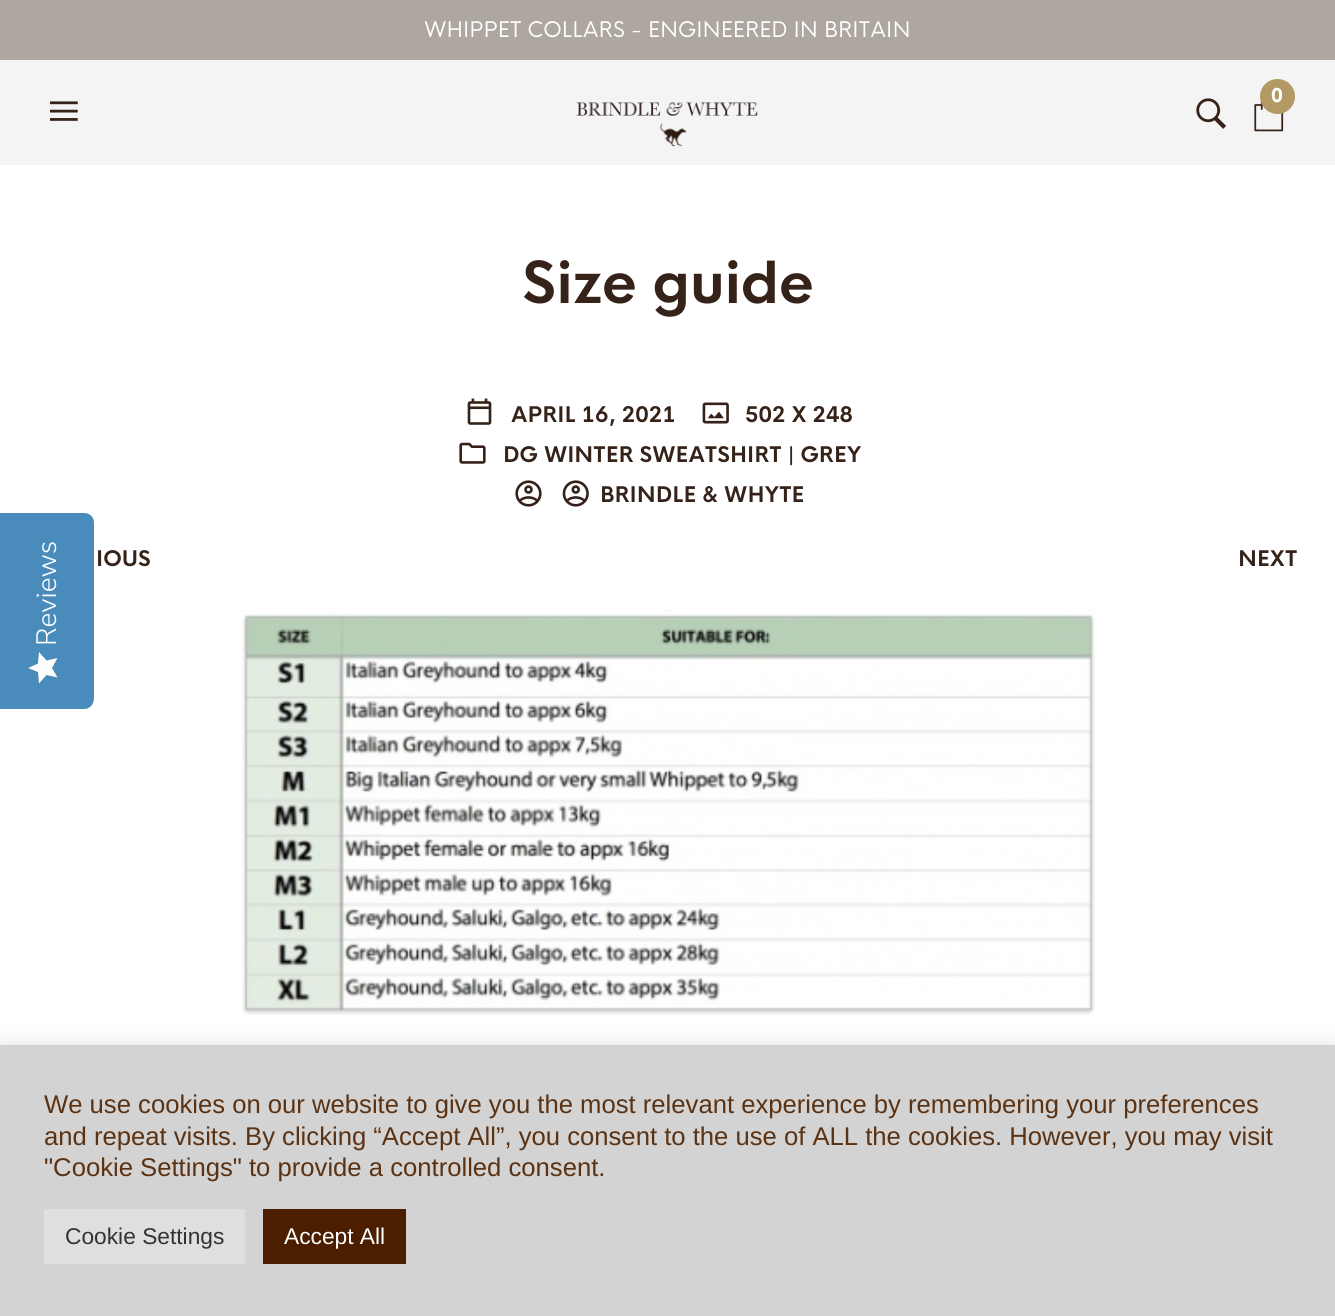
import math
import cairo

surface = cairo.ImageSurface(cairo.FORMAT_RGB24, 1335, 1316)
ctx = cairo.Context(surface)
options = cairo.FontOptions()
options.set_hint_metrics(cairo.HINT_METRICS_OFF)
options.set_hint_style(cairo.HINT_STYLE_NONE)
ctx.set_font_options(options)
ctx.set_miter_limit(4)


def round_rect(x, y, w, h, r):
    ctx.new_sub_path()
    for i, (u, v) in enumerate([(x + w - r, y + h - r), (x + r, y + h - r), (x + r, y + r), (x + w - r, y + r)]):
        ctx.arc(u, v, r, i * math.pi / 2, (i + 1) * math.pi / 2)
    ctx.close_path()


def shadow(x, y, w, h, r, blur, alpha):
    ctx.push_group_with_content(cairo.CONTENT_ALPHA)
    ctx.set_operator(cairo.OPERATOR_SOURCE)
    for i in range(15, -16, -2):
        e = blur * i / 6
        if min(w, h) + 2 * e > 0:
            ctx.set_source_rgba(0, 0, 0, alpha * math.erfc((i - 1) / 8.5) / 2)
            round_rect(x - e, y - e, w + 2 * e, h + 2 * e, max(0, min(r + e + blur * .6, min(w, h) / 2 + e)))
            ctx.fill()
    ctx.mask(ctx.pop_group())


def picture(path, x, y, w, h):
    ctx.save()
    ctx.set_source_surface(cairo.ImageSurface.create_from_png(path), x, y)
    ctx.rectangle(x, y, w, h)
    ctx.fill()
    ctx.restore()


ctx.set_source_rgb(1, 1, 1)
ctx.paint()
ctx.set_source_rgb(0.957, 0.957, 0.957)
ctx.rectangle(0, 60, 1335, 105)
ctx.fill()
ctx.set_source_rgb(0.682, 0.655, 0.624)
ctx.rectangle(0, 0, 1335, 60)
ctx.fill()
ctx.select_font_face("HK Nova")
ctx.set_font_size(21)
ctx.set_source_rgb(1, 1, 1)
ctx.move_to(424, 37)
ctx.show_text("WHIPPET COLLARS - ENGINEERED IN BRITAIN")
picture("img1.png", 1254, 101, 30, 31)
ctx.set_source_rgb(0.702, 0.6, 0.392)
ctx.arc(1277.5, 96.5, 17.5, 0, 2 * math.pi)
ctx.fill()
ctx.select_font_face("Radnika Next", cairo.FONT_SLANT_NORMAL, cairo.FONT_WEIGHT_BOLD)
ctx.set_font_size(18)
ctx.set_source_rgb(1, 1, 1)
ctx.move_to(1271, 102)
ctx.show_text("0")
picture("img2.png", 1196, 98, 30, 31)
picture("img3.png", 50, 101, 28, 20)
picture("img4.png", 576, 102, 182, 45)
ctx.select_font_face("HK Nova", cairo.FONT_SLANT_NORMAL, cairo.FONT_WEIGHT_BOLD)
ctx.set_font_size(56.5)
ctx.set_source_rgb(0.208, 0.133, 0.094)
ctx.move_to(522, 303)
ctx.show_text("Size guide")
picture("img5.png", 467, 398, 25, 27)
ctx.set_font_size(21)
ctx.move_to(511, 422)
ctx.show_text("APRIL 16, 2021")
picture("img6.png", 702, 402, 27, 22)
ctx.move_to(745, 422)
ctx.show_text("502 X 248")
picture("img7.png", 459, 442, 27, 22)
ctx.move_to(503, 462)
ctx.show_text("DG WINTER SWEATSHIRT | GREY")
picture("img8.png", 515, 480, 27, 27)
picture("img9.png", 562, 480, 27, 27)
ctx.move_to(600, 502)
ctx.show_text("BRINDLE & WHYTE")
ctx.move_to(96, 566)
ctx.show_text("IOUS")
ctx.move_to(1238, 566)
ctx.show_text("NEXT")
picture("img10.png", 242, 609, 853, 406)
ctx.set_source_rgb(0.286, 0.549, 0.737)
ctx.new_path()
ctx.move_to(0, 709)
ctx.line_to(0, 513)
ctx.line_to(84, 513)
ctx.curve_to(90, 513, 94, 517, 94, 523)
ctx.line_to(94, 698)
ctx.curve_to(94, 704, 90, 709, 84, 709)
ctx.close_path()
ctx.fill()
ctx.select_font_face("Nunito Sans Light")
ctx.set_font_size(28)
ctx.set_source_rgb(1, 1, 1)
ctx.save()
ctx.translate(56, 646)
ctx.rotate(-90 * math.pi / 180)
ctx.move_to(0, 0)
ctx.show_text("Reviews")
ctx.restore()
gradient = cairo.LinearGradient(28, 684, 28, 652)
gradient.add_color_stop_rgba(1, 0.996, 0.996, 0.996, 1)
gradient.add_color_stop_rgba(1, 0.918, 0.918, 0.918, 1)
ctx.set_source(gradient)
ctx.new_path()
ctx.move_to(52, 668)
ctx.line_to(57.5, 658)
ctx.line_to(46.5, 660.5)
ctx.line_to(39, 652)
ctx.line_to(38, 663.5)
ctx.line_to(28, 668)
ctx.line_to(38, 672)
ctx.line_to(39, 683.5)
ctx.line_to(46.5, 675)
ctx.line_to(57.5, 677.5)
ctx.close_path()
ctx.fill()
ctx.set_source_rgb(0.675, 0.671, 0.671)
shadow(0, 1043, 1335, 271, 0, 9, 0.3)
ctx.set_source_rgb(0.827, 0.827, 0.827)
ctx.rectangle(0, 1045, 1335, 271)
ctx.fill()
ctx.select_font_face("Liberation Sans")
ctx.set_font_size(25.65)
ctx.set_source_rgb(0.357, 0.196, 0.071)
ctx.move_to(44, 1113)
ctx.show_text("We use cookies on our website to give you the most relevant experience by remembering your preferences")
ctx.move_to(44, 1145)
ctx.show_text("and repeat visits. By clicking “Accept All”, you consent to the use of ALL the cookies. However, you may visit")
ctx.move_to(44, 1176)
ctx.show_text("\"Cookie Settings\" to provide a controlled consent.")
ctx.set_source_rgb(0.871, 0.875, 0.878)
ctx.rectangle(44, 1209, 201, 55)
ctx.fill()
ctx.set_font_size(22.75)
ctx.set_source_rgb(0.2, 0.2, 0.2)
ctx.move_to(65, 1244)
ctx.show_text("Cookie Settings")
ctx.set_source_rgb(0.298, 0.118, 0)
ctx.rectangle(263, 1209, 143, 55)
ctx.fill()
ctx.set_source_rgb(1, 1, 1)
ctx.move_to(284, 1244)
ctx.show_text("Accept All")
surface.write_to_png("page.png")
